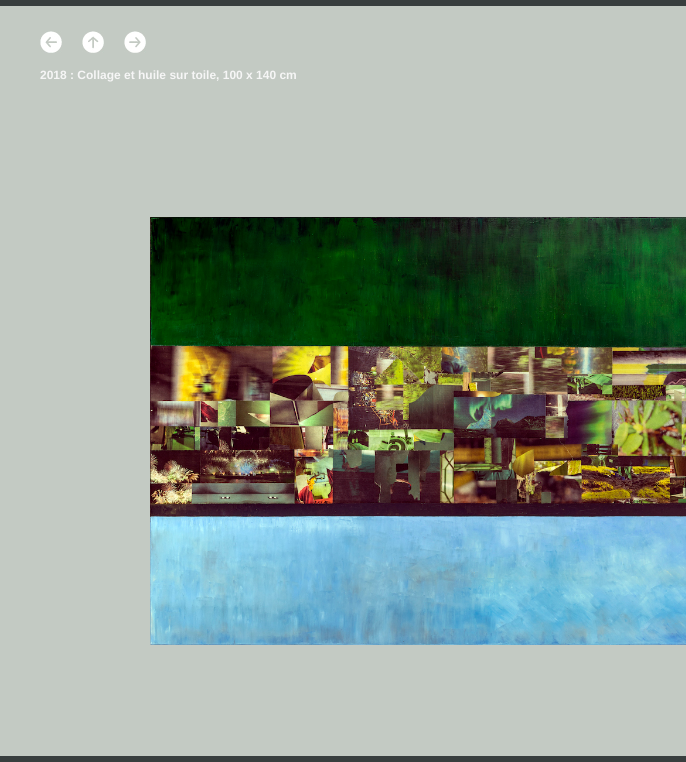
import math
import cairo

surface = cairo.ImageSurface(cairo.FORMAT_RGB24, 686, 762)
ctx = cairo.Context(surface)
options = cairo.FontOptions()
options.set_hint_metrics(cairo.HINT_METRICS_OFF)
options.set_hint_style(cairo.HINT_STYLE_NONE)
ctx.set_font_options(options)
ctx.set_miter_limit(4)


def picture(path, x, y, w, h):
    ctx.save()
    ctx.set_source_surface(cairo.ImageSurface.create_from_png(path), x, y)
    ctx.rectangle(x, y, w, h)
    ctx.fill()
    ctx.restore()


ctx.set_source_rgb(0.22, 0.243, 0.243)
ctx.paint()
ctx.set_source_rgb(0.765, 0.792, 0.765)
ctx.rectangle(0, 6, 686, 750)
ctx.fill()
picture("img1.png", 40, 31, 22, 22)
picture("img2.png", 82, 31, 22, 22)
picture("img3.png", 124, 31, 22, 22)
ctx.select_font_face("Liberation Sans", cairo.FONT_SLANT_NORMAL, cairo.FONT_WEIGHT_BOLD)
ctx.set_font_size(12)
ctx.set_source_rgb(0.961, 0.961, 0.961)
ctx.move_to(40, 79)
ctx.show_text("2018 : Collage et huile sur toile, 100 x 140 cm")
picture("img4.png", 150, 217, 536, 428)
surface.write_to_png("page.png")
